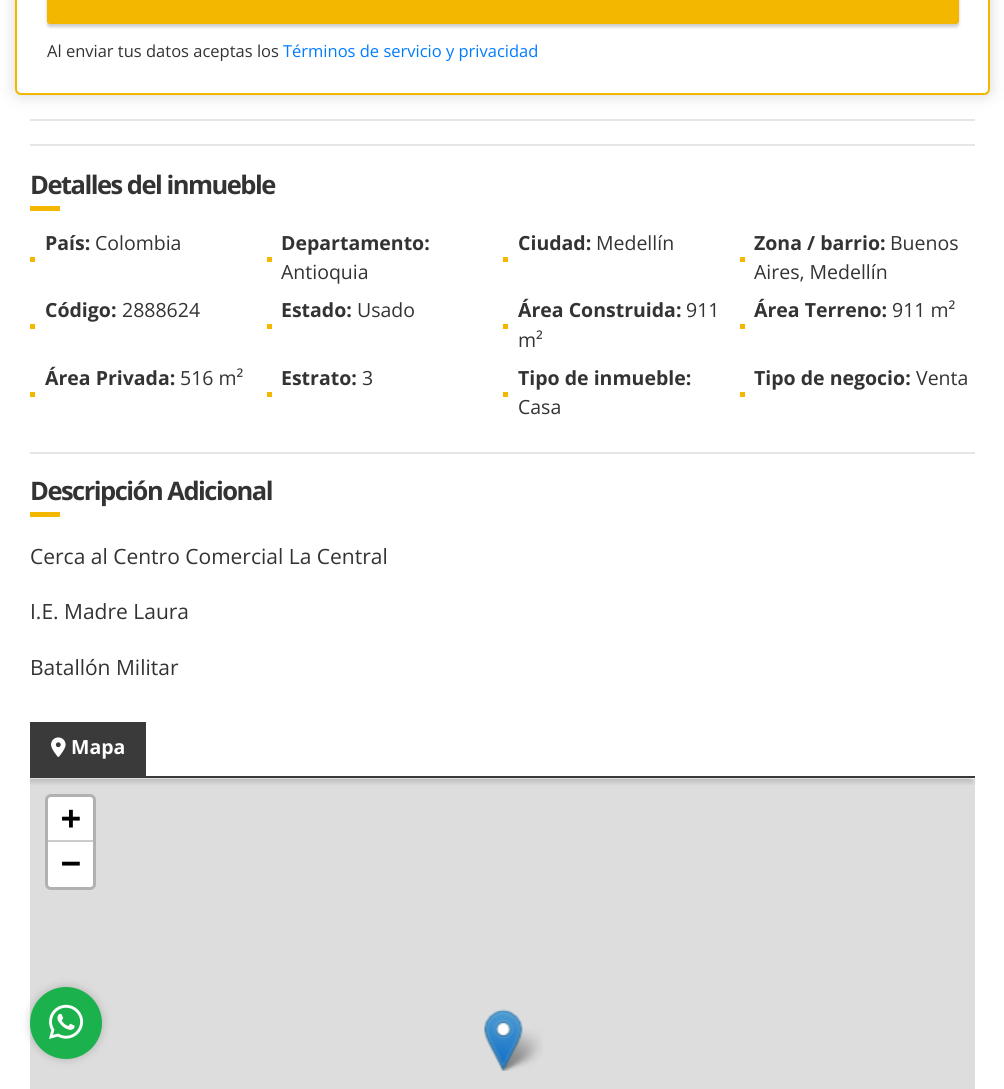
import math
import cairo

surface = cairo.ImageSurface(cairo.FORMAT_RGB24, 1004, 1089)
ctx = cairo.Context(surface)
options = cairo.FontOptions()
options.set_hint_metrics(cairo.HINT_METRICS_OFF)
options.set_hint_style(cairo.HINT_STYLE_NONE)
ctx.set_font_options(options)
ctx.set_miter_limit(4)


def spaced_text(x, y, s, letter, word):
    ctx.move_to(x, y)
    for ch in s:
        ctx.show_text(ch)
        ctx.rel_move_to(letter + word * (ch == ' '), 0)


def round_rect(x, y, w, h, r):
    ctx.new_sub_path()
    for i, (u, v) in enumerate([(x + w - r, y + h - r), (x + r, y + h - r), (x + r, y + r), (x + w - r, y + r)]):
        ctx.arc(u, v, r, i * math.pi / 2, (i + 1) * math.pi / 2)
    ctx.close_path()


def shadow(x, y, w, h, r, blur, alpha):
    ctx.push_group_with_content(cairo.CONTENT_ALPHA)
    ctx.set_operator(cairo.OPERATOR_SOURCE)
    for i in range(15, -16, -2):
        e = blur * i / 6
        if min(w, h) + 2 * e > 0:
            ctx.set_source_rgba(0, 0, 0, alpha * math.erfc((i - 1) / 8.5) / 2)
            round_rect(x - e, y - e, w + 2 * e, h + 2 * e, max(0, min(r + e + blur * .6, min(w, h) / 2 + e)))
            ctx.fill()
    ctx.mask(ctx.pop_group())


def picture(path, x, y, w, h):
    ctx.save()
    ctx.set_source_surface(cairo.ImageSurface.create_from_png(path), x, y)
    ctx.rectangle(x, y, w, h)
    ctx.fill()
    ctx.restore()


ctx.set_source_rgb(1, 1, 1)
ctx.paint()
ctx.set_source_rgb(0.69, 0.69, 0.69)
shadow(15, -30, 975, 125, 6, 8, 0.5)
ctx.set_source_rgb(1, 1, 1)
round_rect(16, -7, 973, 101, 5)
ctx.fill_preserve()
ctx.set_source_rgb(0.957, 0.718, 0)
ctx.stroke()
ctx.set_source_rgb(0, 0, 0)
shadow(47, -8, 912, 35, 3, 1.5, 0.2)
ctx.set_source_rgb(0.957, 0.718, 0)
round_rect(48, -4, 910, 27, 2)
ctx.fill_preserve()
ctx.stroke()
ctx.select_font_face("Open Sans")
ctx.set_font_size(16.5)
ctx.set_source_rgb(0.2, 0.2, 0.2)
ctx.move_to(47, 57)
ctx.show_text("Al enviar tus datos aceptas los")
ctx.set_source_rgb(0, 0.482, 1)
ctx.move_to(283, 57)
ctx.show_text("Términos de servicio y privacidad")
ctx.set_source_rgb(0.898, 0.898, 0.898)
ctx.rectangle(30, 119, 945, 2)
ctx.fill()
ctx.set_source_rgb(0.902, 0.902, 0.902)
ctx.rectangle(30, 144, 945, 2)
ctx.fill()
ctx.select_font_face("Open Sans", cairo.FONT_SLANT_NORMAL, cairo.FONT_WEIGHT_BOLD)
ctx.set_font_size(25.5)
ctx.set_source_rgb(0.2, 0.2, 0.2)
spaced_text(30, 194, "Detalles del inmueble", -1.5, 0)
ctx.set_source_rgb(0.957, 0.718, 0)
ctx.rectangle(30, 206, 30, 5)
ctx.fill()
ctx.set_font_size(19.5)
ctx.set_source_rgb(0.2, 0.2, 0.2)
ctx.move_to(45, 250)
ctx.show_text("País:")
ctx.select_font_face("Open Sans")
ctx.move_to(95, 250)
ctx.show_text("Colombia")
ctx.set_source_rgb(0.957, 0.718, 0)
ctx.rectangle(30, 257, 5, 5)
ctx.fill()
ctx.select_font_face("Open Sans", cairo.FONT_SLANT_NORMAL, cairo.FONT_WEIGHT_BOLD)
ctx.set_source_rgb(0.2, 0.2, 0.2)
ctx.move_to(281, 250)
ctx.show_text("Departamento:")
ctx.set_source_rgb(0.957, 0.718, 0)
ctx.rectangle(267, 257, 5, 5)
ctx.fill()
ctx.select_font_face("Open Sans")
ctx.set_source_rgb(0.2, 0.2, 0.2)
ctx.move_to(281, 279)
ctx.show_text("Antioquia")
ctx.select_font_face("Open Sans", cairo.FONT_SLANT_NORMAL, cairo.FONT_WEIGHT_BOLD)
ctx.move_to(518, 250)
ctx.show_text("Ciudad:")
ctx.select_font_face("Open Sans")
ctx.move_to(596, 250)
ctx.show_text("Medellín")
ctx.set_source_rgb(0.957, 0.718, 0)
ctx.rectangle(503, 257, 5, 5)
ctx.fill()
ctx.select_font_face("Open Sans", cairo.FONT_SLANT_NORMAL, cairo.FONT_WEIGHT_BOLD)
ctx.set_source_rgb(0.2, 0.2, 0.2)
ctx.move_to(754, 250)
ctx.show_text("Zona / barrio:")
ctx.select_font_face("Open Sans")
ctx.move_to(890, 250)
ctx.show_text("Buenos")
ctx.set_source_rgb(0.957, 0.718, 0)
ctx.rectangle(740, 257, 5, 5)
ctx.fill()
ctx.set_source_rgb(0.2, 0.2, 0.2)
ctx.move_to(754, 279)
ctx.show_text("Aires, Medellín")
ctx.select_font_face("Open Sans", cairo.FONT_SLANT_NORMAL, cairo.FONT_WEIGHT_BOLD)
ctx.move_to(45, 317)
ctx.show_text("Código:")
ctx.select_font_face("Open Sans")
ctx.move_to(122, 317)
ctx.show_text("2888624")
ctx.set_source_rgb(0.957, 0.718, 0)
ctx.rectangle(30, 324, 5, 5)
ctx.fill()
ctx.select_font_face("Open Sans", cairo.FONT_SLANT_NORMAL, cairo.FONT_WEIGHT_BOLD)
ctx.set_source_rgb(0.2, 0.2, 0.2)
ctx.move_to(281, 317)
ctx.show_text("Estado:")
ctx.select_font_face("Open Sans")
ctx.move_to(357, 317)
ctx.show_text("Usado")
ctx.set_source_rgb(0.957, 0.718, 0)
ctx.rectangle(267, 324, 5, 5)
ctx.fill()
ctx.select_font_face("Open Sans", cairo.FONT_SLANT_NORMAL, cairo.FONT_WEIGHT_BOLD)
ctx.set_source_rgb(0.2, 0.2, 0.2)
ctx.move_to(518, 317)
ctx.show_text("Área Construida:")
ctx.select_font_face("Open Sans")
ctx.move_to(686, 317)
ctx.show_text("911")
ctx.set_source_rgb(0.957, 0.718, 0)
ctx.rectangle(503, 324, 5, 5)
ctx.fill()
ctx.set_source_rgb(0.2, 0.2, 0.2)
ctx.move_to(518, 347)
ctx.show_text("m²")
ctx.select_font_face("Open Sans", cairo.FONT_SLANT_NORMAL, cairo.FONT_WEIGHT_BOLD)
ctx.move_to(754, 317)
ctx.show_text("Área Terreno:")
ctx.select_font_face("Open Sans")
ctx.move_to(892, 317)
ctx.show_text("911 m²")
ctx.set_source_rgb(0.957, 0.718, 0)
ctx.rectangle(740, 324, 5, 5)
ctx.fill()
ctx.select_font_face("Open Sans", cairo.FONT_SLANT_NORMAL, cairo.FONT_WEIGHT_BOLD)
ctx.set_source_rgb(0.2, 0.2, 0.2)
ctx.move_to(45, 385)
ctx.show_text("Área Privada:")
ctx.select_font_face("Open Sans")
ctx.move_to(180, 385)
ctx.show_text("516 m²")
ctx.set_source_rgb(0.957, 0.718, 0)
ctx.rectangle(30, 392, 5, 5)
ctx.fill()
ctx.select_font_face("Open Sans", cairo.FONT_SLANT_NORMAL, cairo.FONT_WEIGHT_BOLD)
ctx.set_source_rgb(0.2, 0.2, 0.2)
ctx.move_to(281, 385)
ctx.show_text("Estrato:")
ctx.select_font_face("Open Sans")
ctx.move_to(362, 385)
ctx.show_text("3")
ctx.set_source_rgb(0.957, 0.718, 0)
ctx.rectangle(267, 392, 5, 5)
ctx.fill()
ctx.select_font_face("Open Sans", cairo.FONT_SLANT_NORMAL, cairo.FONT_WEIGHT_BOLD)
ctx.set_source_rgb(0.2, 0.2, 0.2)
ctx.move_to(518, 385)
ctx.show_text("Tipo de inmueble:")
ctx.set_source_rgb(0.957, 0.718, 0)
ctx.rectangle(503, 392, 5, 5)
ctx.fill()
ctx.select_font_face("Open Sans")
ctx.set_source_rgb(0.2, 0.2, 0.2)
ctx.move_to(518, 414)
ctx.show_text("Casa")
ctx.select_font_face("Open Sans", cairo.FONT_SLANT_NORMAL, cairo.FONT_WEIGHT_BOLD)
ctx.move_to(754, 385)
ctx.show_text("Tipo de negocio:")
ctx.select_font_face("Open Sans")
ctx.move_to(916, 385)
ctx.show_text("Venta")
ctx.set_source_rgb(0.957, 0.718, 0)
ctx.rectangle(740, 392, 5, 5)
ctx.fill()
ctx.set_source_rgb(0.902, 0.902, 0.902)
ctx.rectangle(30, 452, 945, 2)
ctx.fill()
ctx.select_font_face("Open Sans", cairo.FONT_SLANT_NORMAL, cairo.FONT_WEIGHT_BOLD)
ctx.set_font_size(25.5)
ctx.set_source_rgb(0.2, 0.2, 0.2)
spaced_text(30, 500, "Descripción Adicional", -1.5, 0)
ctx.set_source_rgb(0.957, 0.718, 0)
ctx.rectangle(30, 512, 30, 5)
ctx.fill()
ctx.select_font_face("Open Sans")
ctx.set_font_size(21)
ctx.set_source_rgb(0.2, 0.2, 0.2)
ctx.move_to(30, 564)
ctx.show_text("Cerca al Centro Comercial La Central")
ctx.move_to(30, 619)
ctx.show_text("I.E. Madre Laura")
ctx.move_to(30, 675)
ctx.show_text("Batallón Militar")
ctx.set_source_rgb(0.867, 0.867, 0.867)
ctx.rectangle(30, 779, 945, 310)
ctx.fill()
ctx.save()
ctx.rectangle(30, 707, 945, 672)
ctx.clip()
ctx.rectangle(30, 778, 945, 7)
ctx.clip()
ctx.set_source_rgb(0, 0, 0)
shadow(27, 726, 945, 56, 0, 3, 0.16)
ctx.restore()
ctx.set_source_rgb(0.227, 0.227, 0.227)
ctx.rectangle(30, 776, 945, 2)
ctx.fill()
ctx.rectangle(30, 722, 116, 54)
ctx.fill()
picture("img1.png", 51, 737, 15, 20)
ctx.select_font_face("Open Sans", cairo.FONT_SLANT_NORMAL, cairo.FONT_WEIGHT_BOLD)
ctx.set_font_size(19.5)
ctx.set_source_rgb(1, 1, 1)
ctx.move_to(71, 754)
ctx.show_text("Mapa")
round_rect(46.5, 795.5, 48, 93, 4.5)
ctx.set_source_rgb(0.694, 0.694, 0.694)
ctx.set_line_width(3)
ctx.stroke()
ctx.set_source_rgb(1, 1, 1)
ctx.new_path()
ctx.move_to(51, 797)
ctx.line_to(90, 797)
ctx.curve_to(91.5, 797, 93, 798.5, 93, 800)
ctx.line_to(93, 842)
ctx.line_to(48, 842)
ctx.line_to(48, 800)
ctx.curve_to(48, 798.5, 49.5, 797, 51, 797)
ctx.close_path()
ctx.fill()
ctx.set_source_rgb(0.8, 0.8, 0.8)
ctx.rectangle(48, 840, 45, 2)
ctx.fill()
ctx.select_font_face("DejaVu Sans Mono", cairo.FONT_SLANT_NORMAL, cairo.FONT_WEIGHT_BOLD)
ctx.set_font_size(33)
ctx.set_source_rgb(0, 0, 0)
ctx.move_to(61, 829)
ctx.show_text("+")
ctx.set_source_rgb(1, 1, 1)
ctx.new_path()
ctx.move_to(48, 842)
ctx.line_to(93, 842)
ctx.line_to(93, 884)
ctx.curve_to(93, 885.5, 91.5, 887, 90, 887)
ctx.line_to(51, 887)
ctx.curve_to(49.5, 887, 48, 885.5, 48, 884)
ctx.close_path()
ctx.fill()
ctx.set_source_rgb(0, 0, 0)
ctx.move_to(61, 874)
ctx.show_text("−")
picture("img3.png", 498, 1028, 45, 43)
picture("img2.png", 484, 1009, 39, 62)
ctx.set_source_rgb(0, 0, 0)
shadow(30, 987, 72, 72, 36, 4.5, 0.2)
ctx.set_source_rgb(0.106, 0.698, 0.306)
ctx.arc(66, 1023, 36, 0, 2 * math.pi)
ctx.fill()
picture("img4.png", 49, 1004, 35, 35)
surface.write_to_png("page.png")
